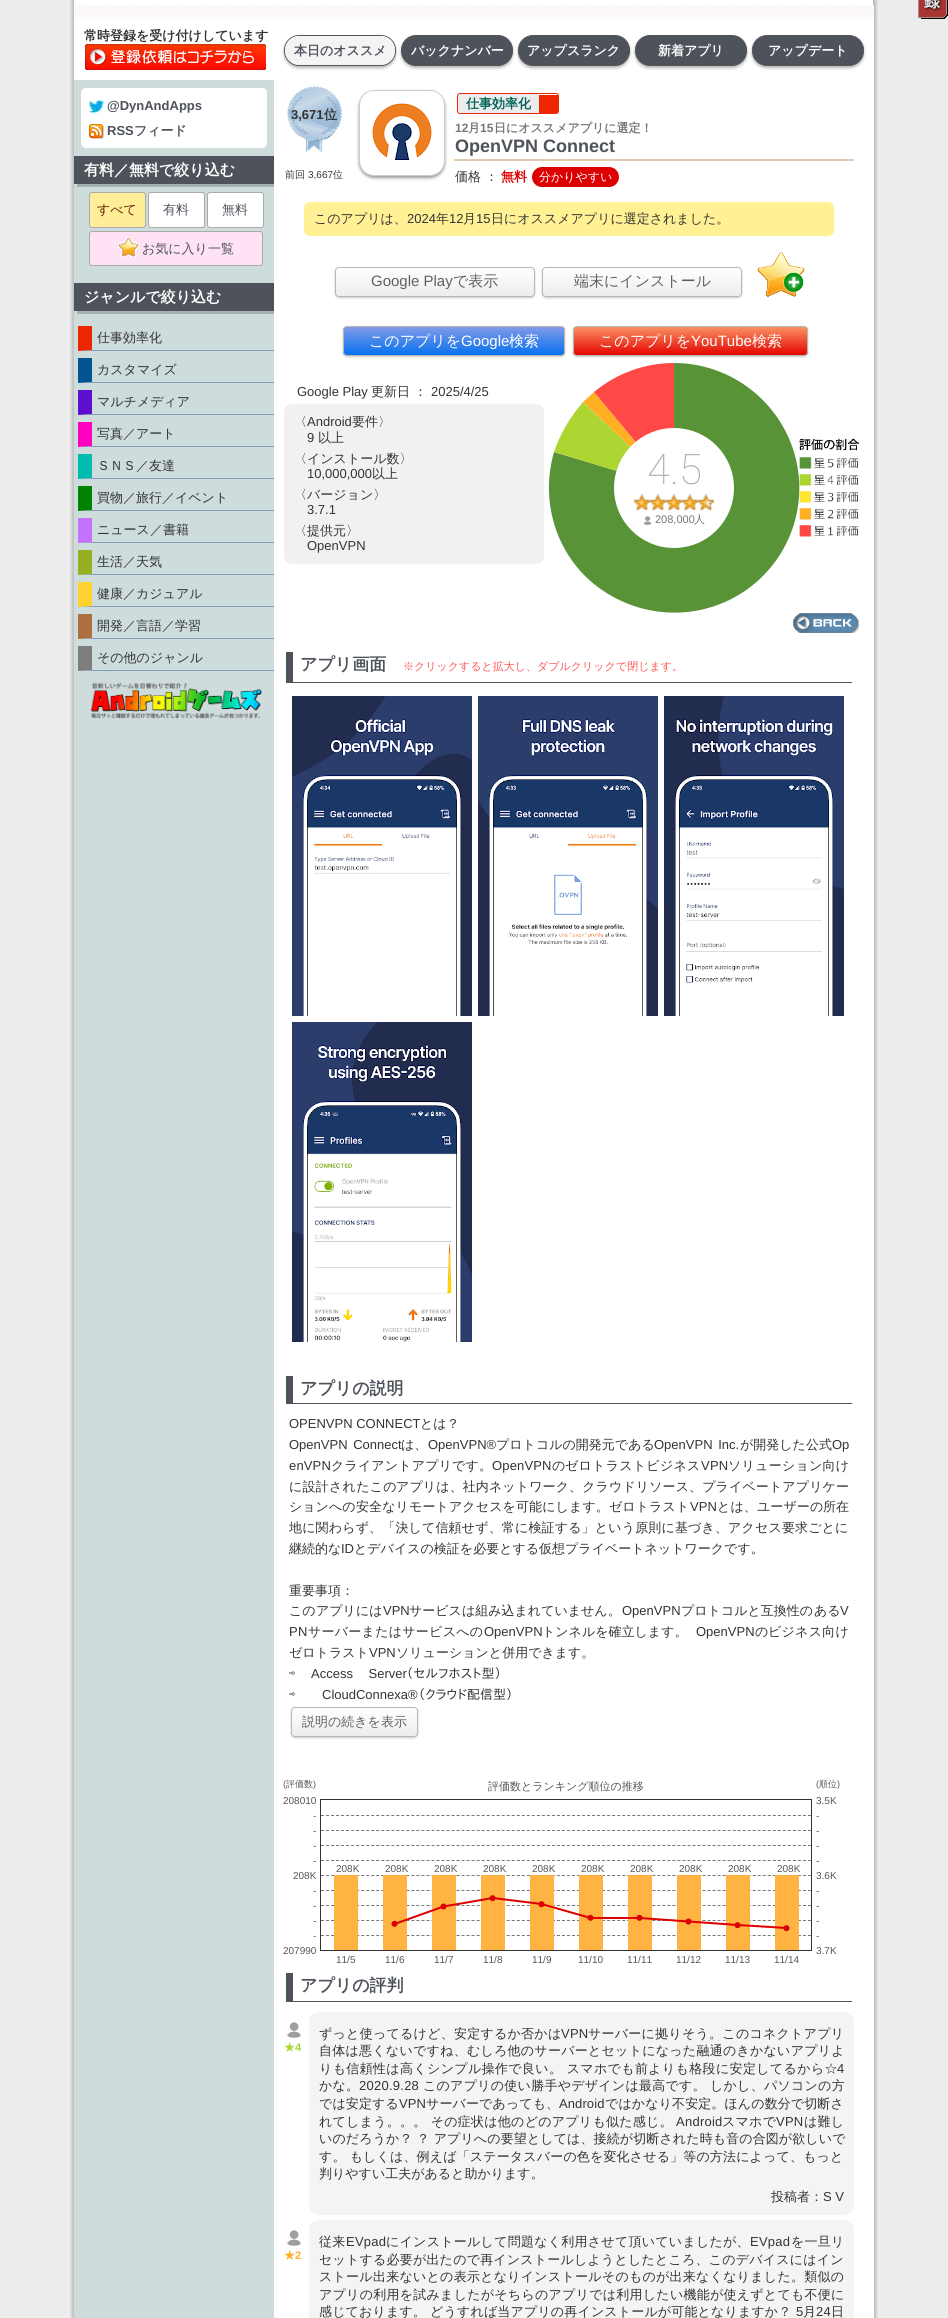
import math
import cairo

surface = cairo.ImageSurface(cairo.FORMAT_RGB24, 948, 2318)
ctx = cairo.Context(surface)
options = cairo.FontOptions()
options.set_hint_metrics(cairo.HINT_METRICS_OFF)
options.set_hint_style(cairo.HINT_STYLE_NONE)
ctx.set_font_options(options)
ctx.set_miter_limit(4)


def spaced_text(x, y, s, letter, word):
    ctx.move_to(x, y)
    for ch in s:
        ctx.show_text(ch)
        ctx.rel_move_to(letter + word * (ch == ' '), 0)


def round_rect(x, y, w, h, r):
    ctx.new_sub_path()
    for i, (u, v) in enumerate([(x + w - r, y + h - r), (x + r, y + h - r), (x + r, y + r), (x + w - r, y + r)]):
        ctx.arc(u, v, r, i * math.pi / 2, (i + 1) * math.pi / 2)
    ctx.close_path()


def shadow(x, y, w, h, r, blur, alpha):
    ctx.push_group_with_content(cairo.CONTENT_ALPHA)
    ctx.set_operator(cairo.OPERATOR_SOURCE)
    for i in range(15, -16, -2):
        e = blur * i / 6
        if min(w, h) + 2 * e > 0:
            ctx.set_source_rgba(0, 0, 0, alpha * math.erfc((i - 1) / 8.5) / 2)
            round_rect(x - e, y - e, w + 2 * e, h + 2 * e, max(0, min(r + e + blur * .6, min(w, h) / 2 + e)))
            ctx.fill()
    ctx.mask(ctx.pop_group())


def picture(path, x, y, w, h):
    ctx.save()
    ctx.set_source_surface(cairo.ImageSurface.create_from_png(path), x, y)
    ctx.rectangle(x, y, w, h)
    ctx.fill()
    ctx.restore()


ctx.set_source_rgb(0.929, 0.929, 0.929)
ctx.paint()
picture("img1.png", 70, 0, 808, 2318)
picture("img2.png", 918, 0, 30, 19)
ctx.set_source_rgb(1, 1, 1)
ctx.rectangle(873, 18, 1, 62)
ctx.fill()
picture("img3.png", 74, 5, 800, 13)
ctx.select_font_face("WenQuanYi Zen Hei", cairo.FONT_SLANT_NORMAL, cairo.FONT_WEIGHT_BOLD)
ctx.set_font_size(13)
ctx.set_source_rgb(0.2, 0.2, 0.2)
ctx.move_to(84, 40)
ctx.show_text("常時登録を受け付けしています")
picture("img4.png", 85, 44, 181, 26)
ctx.set_source_rgb(0, 0, 0)
shadow(284, 37, 112, 31, 15, 1.5, 0.3)
round_rect(284.5, 35.5, 111, 30, 14.5)
ctx.set_source_rgb(0.333, 0.333, 0.333)
ctx.set_line_width(1)
ctx.stroke()
ctx.set_source_rgb(0.957, 0.957, 0.957)
round_rect(285, 36, 110, 29, 14)
ctx.fill()
ctx.set_source_rgb(0.306, 0.322, 0.357)
ctx.move_to(294, 55)
ctx.show_text("本日のオススメ")
ctx.set_source_rgb(0, 0, 0)
shadow(401, 37, 112, 31, 15, 1.5, 0.3)
ctx.set_source_rgb(0.306, 0.322, 0.357)
round_rect(401.5, 35.5, 111, 30, 14.5)
ctx.fill_preserve()
ctx.set_source_rgb(0.333, 0.333, 0.333)
ctx.stroke()
ctx.set_source_rgb(1, 1, 1)
ctx.move_to(411, 55)
ctx.show_text("バックナンバー")
ctx.set_source_rgb(0, 0, 0)
shadow(518, 37, 112, 31, 15, 1.5, 0.3)
ctx.set_source_rgb(0.306, 0.322, 0.357)
round_rect(518.5, 35.5, 111, 30, 14.5)
ctx.fill_preserve()
ctx.set_source_rgb(0.333, 0.333, 0.333)
ctx.stroke()
ctx.set_source_rgb(1, 1, 1)
ctx.move_to(527, 55)
ctx.show_text("アップスランク")
ctx.set_source_rgb(0, 0, 0)
shadow(635, 37, 112, 31, 15, 1.5, 0.3)
ctx.set_source_rgb(0.306, 0.322, 0.357)
round_rect(635.5, 35.5, 111, 30, 14.5)
ctx.fill_preserve()
ctx.set_source_rgb(0.333, 0.333, 0.333)
ctx.stroke()
ctx.set_source_rgb(1, 1, 1)
ctx.move_to(658, 55)
ctx.show_text("新着アプリ")
ctx.set_source_rgb(0, 0, 0)
shadow(752, 37, 112, 31, 15, 1.5, 0.3)
ctx.set_source_rgb(0.306, 0.322, 0.357)
round_rect(752.5, 35.5, 111, 30, 14.5)
ctx.fill_preserve()
ctx.set_source_rgb(0.333, 0.333, 0.333)
ctx.stroke()
ctx.set_source_rgb(1, 1, 1)
ctx.move_to(768, 55)
ctx.show_text("アップデート")
ctx.set_source_rgb(0.808, 0.863, 0.859)
ctx.rectangle(74, 80, 200, 2238)
ctx.fill()
ctx.set_source_rgb(1, 1, 1)
round_rect(81, 88, 186, 60, 5)
ctx.fill()
picture("img5.png", 89, 99, 15, 15)
ctx.select_font_face("Liberation Sans", cairo.FONT_SLANT_NORMAL, cairo.FONT_WEIGHT_BOLD)
ctx.set_source_rgb(0.306, 0.322, 0.357)
ctx.move_to(107, 110)
ctx.show_text("@DynAndApps")
picture("img6.png", 89, 124, 15, 15)
ctx.move_to(107, 135)
ctx.show_text("RSS")
ctx.select_font_face("WenQuanYi Zen Hei", cairo.FONT_SLANT_NORMAL, cairo.FONT_WEIGHT_BOLD)
ctx.move_to(134, 135)
ctx.show_text("フィード")
ctx.set_source_rgb(0.647, 0.69, 0.686)
ctx.new_path()
ctx.move_to(77, 184)
ctx.line_to(77, 187)
ctx.line_to(277, 187)
ctx.line_to(277, 159)
ctx.line_to(274, 159)
ctx.line_to(274, 184)
ctx.close_path()
ctx.fill()
ctx.set_source_rgb(0.306, 0.322, 0.357)
ctx.rectangle(74, 156, 200, 28)
ctx.fill()
ctx.set_font_size(15)
ctx.set_source_rgb(1, 1, 1)
ctx.move_to(84, 175)
ctx.show_text("有料／無料で絞り込む")
ctx.set_source_rgb(1, 0.929, 0.592)
round_rect(89.5, 192.5, 56, 35, 2.5)
ctx.fill_preserve()
ctx.set_source_rgb(0.667, 0.667, 0.667)
ctx.stroke()
ctx.select_font_face("WenQuanYi Zen Hei Medium")
ctx.set_font_size(13)
ctx.set_source_rgb(0.373, 0.118, 0.004)
ctx.move_to(97, 214)
ctx.show_text("すべて")
ctx.set_source_rgb(1, 1, 1)
round_rect(148.5, 192.5, 56, 35, 2.5)
ctx.fill_preserve()
ctx.set_source_rgb(0.667, 0.667, 0.667)
ctx.stroke()
ctx.set_source_rgb(0.306, 0.322, 0.357)
ctx.move_to(163, 214)
ctx.show_text("有料")
ctx.set_source_rgb(1, 1, 1)
round_rect(207.5, 192.5, 56, 35, 2.5)
ctx.fill_preserve()
ctx.set_source_rgb(0.667, 0.667, 0.667)
ctx.stroke()
ctx.set_source_rgb(0.306, 0.322, 0.357)
ctx.move_to(222, 214)
ctx.show_text("無料")
ctx.set_source_rgb(1, 0.886, 0.953)
round_rect(89.5, 231.5, 173, 34, 2.5)
ctx.fill_preserve()
ctx.set_source_rgb(0.667, 0.667, 0.667)
ctx.stroke()
picture("img7.png", 118, 237, 21, 21)
ctx.set_source_rgb(0.306, 0.322, 0.357)
ctx.move_to(142, 253)
ctx.show_text("お気に入り一覧")
ctx.set_source_rgb(0.647, 0.69, 0.686)
ctx.new_path()
ctx.move_to(77, 311)
ctx.line_to(77, 314)
ctx.line_to(277, 314)
ctx.line_to(277, 286)
ctx.line_to(274, 286)
ctx.line_to(274, 311)
ctx.close_path()
ctx.fill()
ctx.set_source_rgb(0.306, 0.322, 0.357)
ctx.rectangle(74, 283, 200, 28)
ctx.fill()
ctx.select_font_face("WenQuanYi Zen Hei", cairo.FONT_SLANT_NORMAL, cairo.FONT_WEIGHT_BOLD)
ctx.set_font_size(15)
ctx.set_source_rgb(1, 1, 1)
ctx.move_to(84, 302)
ctx.show_text("ジャンルで絞り込む")
ctx.set_source_rgb(0.51, 0.604, 0.753)
ctx.new_path()
ctx.move_to(274, 351)
ctx.line_to(78, 351)
ctx.line_to(92, 350)
ctx.line_to(274, 350)
ctx.close_path()
ctx.fill()
ctx.set_source_rgb(0.925, 0.153, 0)
ctx.new_path()
ctx.move_to(78, 351)
ctx.line_to(78, 326)
ctx.line_to(92, 326)
ctx.line_to(92, 350)
ctx.close_path()
ctx.fill()
ctx.select_font_face("WenQuanYi Zen Hei Medium")
ctx.set_font_size(13)
ctx.set_source_rgb(0.2, 0.2, 0.2)
ctx.move_to(97, 342)
ctx.show_text("仕事効率化")
ctx.set_source_rgb(0.51, 0.604, 0.753)
ctx.new_path()
ctx.move_to(274, 383)
ctx.line_to(78, 383)
ctx.line_to(92, 382)
ctx.line_to(274, 382)
ctx.close_path()
ctx.fill()
ctx.set_source_rgb(0.012, 0.322, 0.573)
ctx.new_path()
ctx.move_to(78, 383)
ctx.line_to(78, 358)
ctx.line_to(92, 358)
ctx.line_to(92, 382)
ctx.close_path()
ctx.fill()
ctx.set_source_rgb(0.2, 0.2, 0.2)
ctx.move_to(97, 374)
ctx.show_text("カスタマイズ")
ctx.set_source_rgb(0.51, 0.604, 0.753)
ctx.new_path()
ctx.move_to(274, 415)
ctx.line_to(78, 415)
ctx.line_to(92, 414)
ctx.line_to(274, 414)
ctx.close_path()
ctx.fill()
ctx.set_source_rgb(0.361, 0.059, 0.816)
ctx.new_path()
ctx.move_to(78, 415)
ctx.line_to(78, 390)
ctx.line_to(92, 390)
ctx.line_to(92, 414)
ctx.close_path()
ctx.fill()
ctx.set_source_rgb(0.2, 0.2, 0.2)
ctx.move_to(97, 406)
ctx.show_text("マルチメディア")
ctx.set_source_rgb(0.51, 0.604, 0.753)
ctx.new_path()
ctx.move_to(274, 447)
ctx.line_to(78, 447)
ctx.line_to(92, 446)
ctx.line_to(274, 446)
ctx.close_path()
ctx.fill()
ctx.set_source_rgb(1, 0, 0.753)
ctx.new_path()
ctx.move_to(78, 447)
ctx.line_to(78, 422)
ctx.line_to(92, 422)
ctx.line_to(92, 446)
ctx.close_path()
ctx.fill()
ctx.set_source_rgb(0.2, 0.2, 0.2)
ctx.move_to(97, 438)
ctx.show_text("写真／アート")
ctx.set_source_rgb(0.51, 0.604, 0.753)
ctx.new_path()
ctx.move_to(274, 479)
ctx.line_to(78, 479)
ctx.line_to(92, 478)
ctx.line_to(274, 478)
ctx.close_path()
ctx.fill()
ctx.set_source_rgb(0, 0.737, 0.69)
ctx.new_path()
ctx.move_to(78, 479)
ctx.line_to(78, 454)
ctx.line_to(92, 454)
ctx.line_to(92, 478)
ctx.close_path()
ctx.fill()
ctx.set_source_rgb(0.2, 0.2, 0.2)
ctx.move_to(97, 470)
ctx.show_text("ＳＮＳ／友達")
ctx.set_source_rgb(0.51, 0.604, 0.753)
ctx.new_path()
ctx.move_to(274, 511)
ctx.line_to(78, 511)
ctx.line_to(92, 510)
ctx.line_to(274, 510)
ctx.close_path()
ctx.fill()
ctx.set_source_rgb(0, 0.514, 0)
ctx.new_path()
ctx.move_to(78, 511)
ctx.line_to(78, 486)
ctx.line_to(92, 486)
ctx.line_to(92, 510)
ctx.close_path()
ctx.fill()
ctx.set_source_rgb(0.2, 0.2, 0.2)
ctx.move_to(97, 502)
ctx.show_text("買物／旅行／イベント")
ctx.set_source_rgb(0.51, 0.604, 0.753)
ctx.new_path()
ctx.move_to(274, 543)
ctx.line_to(78, 543)
ctx.line_to(92, 542)
ctx.line_to(274, 542)
ctx.close_path()
ctx.fill()
ctx.set_source_rgb(0.769, 0.443, 0.996)
ctx.new_path()
ctx.move_to(78, 543)
ctx.line_to(78, 518)
ctx.line_to(92, 518)
ctx.line_to(92, 542)
ctx.close_path()
ctx.fill()
ctx.set_source_rgb(0.2, 0.2, 0.2)
ctx.move_to(97, 534)
ctx.show_text("ニュース／書籍")
ctx.set_source_rgb(0.51, 0.604, 0.753)
ctx.new_path()
ctx.move_to(274, 575)
ctx.line_to(78, 575)
ctx.line_to(92, 574)
ctx.line_to(274, 574)
ctx.close_path()
ctx.fill()
ctx.set_source_rgb(0.584, 0.69, 0.137)
ctx.new_path()
ctx.move_to(78, 575)
ctx.line_to(78, 550)
ctx.line_to(92, 550)
ctx.line_to(92, 574)
ctx.close_path()
ctx.fill()
ctx.set_source_rgb(0.2, 0.2, 0.2)
ctx.move_to(97, 566)
ctx.show_text("生活／天気")
ctx.set_source_rgb(0.51, 0.604, 0.753)
ctx.new_path()
ctx.move_to(274, 607)
ctx.line_to(78, 607)
ctx.line_to(92, 606)
ctx.line_to(274, 606)
ctx.close_path()
ctx.fill()
ctx.set_source_rgb(1, 0.82, 0.192)
ctx.new_path()
ctx.move_to(78, 607)
ctx.line_to(78, 582)
ctx.line_to(92, 582)
ctx.line_to(92, 606)
ctx.close_path()
ctx.fill()
ctx.set_source_rgb(0.2, 0.2, 0.2)
ctx.move_to(97, 598)
ctx.show_text("健康／カジュアル")
ctx.set_source_rgb(0.51, 0.604, 0.753)
ctx.new_path()
ctx.move_to(274, 639)
ctx.line_to(78, 639)
ctx.line_to(92, 638)
ctx.line_to(274, 638)
ctx.close_path()
ctx.fill()
ctx.set_source_rgb(0.675, 0.439, 0.247)
ctx.new_path()
ctx.move_to(78, 639)
ctx.line_to(78, 614)
ctx.line_to(92, 614)
ctx.line_to(92, 638)
ctx.close_path()
ctx.fill()
ctx.set_source_rgb(0.2, 0.2, 0.2)
ctx.move_to(97, 630)
ctx.show_text("開発／言語／学習")
ctx.set_source_rgb(0.51, 0.604, 0.753)
ctx.new_path()
ctx.move_to(274, 671)
ctx.line_to(78, 671)
ctx.line_to(92, 670)
ctx.line_to(274, 670)
ctx.close_path()
ctx.fill()
ctx.set_source_rgb(0.494, 0.494, 0.494)
ctx.new_path()
ctx.move_to(78, 671)
ctx.line_to(78, 646)
ctx.line_to(92, 646)
ctx.line_to(92, 670)
ctx.close_path()
ctx.fill()
ctx.set_source_rgb(0.2, 0.2, 0.2)
ctx.move_to(97, 662)
ctx.show_text("その他のジャンル")
picture("img8.png", 90, 682, 173, 37)
ctx.set_source_rgb(1, 1, 1)
ctx.rectangle(274, 80, 600, 2238)
ctx.fill()
picture("img9.png", 287, 86, 55, 66)
ctx.select_font_face("Liberation Sans", cairo.FONT_SLANT_NORMAL, cairo.FONT_WEIGHT_BOLD)
ctx.set_source_rgb(0.2, 0.2, 0.2)
ctx.move_to(291, 119)
ctx.show_text("3,671")
ctx.select_font_face("WenQuanYi Zen Hei", cairo.FONT_SLANT_NORMAL, cairo.FONT_WEIGHT_BOLD)
ctx.move_to(324, 119)
ctx.show_text("位")
ctx.select_font_face("WenQuanYi Zen Hei Medium")
ctx.set_font_size(10)
ctx.move_to(285, 178)
ctx.show_text("前回")
ctx.select_font_face("Liberation Sans")
ctx.move_to(308, 178)
ctx.show_text("3,667")
ctx.select_font_face("WenQuanYi Zen Hei Medium")
ctx.move_to(333, 178)
ctx.show_text("位")
ctx.set_source_rgb(0, 0, 0)
shadow(359, 92, 86, 86, 15, 1.5, 0.4)
round_rect(359.5, 90.5, 85, 85, 14.5)
ctx.set_source_rgb(0.8, 0.8, 0.8)
ctx.stroke()
picture("img10.png", 360, 91, 84, 84)
ctx.set_source_rgb(0.922, 0.922, 0.922)
ctx.new_path()
ctx.move_to(460, 94)
ctx.line_to(539, 94)
ctx.line_to(539, 113)
ctx.line_to(460, 113)
ctx.curve_to(459, 113, 458, 112, 458, 111)
ctx.line_to(458, 96)
ctx.curve_to(458, 95, 459, 94, 460, 94)
ctx.close_path()
ctx.fill()
round_rect(457.5, 93.5, 101, 20, 2.5)
ctx.set_source_rgb(0.925, 0.153, 0)
ctx.stroke()
ctx.select_font_face("WenQuanYi Zen Hei", cairo.FONT_SLANT_NORMAL, cairo.FONT_WEIGHT_BOLD)
ctx.set_font_size(13)
ctx.set_source_rgb(0, 0.38, 0.345)
ctx.move_to(466, 108)
ctx.show_text("仕事効率化")
ctx.set_source_rgb(0.925, 0.153, 0)
ctx.rectangle(539, 95, 19, 18)
ctx.fill()
ctx.set_source_rgb(0.886, 0.796, 0.69)
ctx.rectangle(454, 159, 400, 2)
ctx.fill()
ctx.select_font_face("Liberation Sans", cairo.FONT_SLANT_NORMAL, cairo.FONT_WEIGHT_BOLD)
ctx.set_font_size(12)
ctx.set_source_rgb(0.467, 0.467, 0.467)
ctx.move_to(455, 132)
ctx.show_text("12")
ctx.select_font_face("WenQuanYi Zen Hei", cairo.FONT_SLANT_NORMAL, cairo.FONT_WEIGHT_BOLD)
ctx.move_to(468, 132)
ctx.show_text("月")
ctx.select_font_face("Liberation Sans", cairo.FONT_SLANT_NORMAL, cairo.FONT_WEIGHT_BOLD)
ctx.move_to(480, 132)
ctx.show_text("15")
ctx.select_font_face("WenQuanYi Zen Hei", cairo.FONT_SLANT_NORMAL, cairo.FONT_WEIGHT_BOLD)
ctx.move_to(494, 132)
ctx.show_text("日にオススメアプリに選定！")
ctx.select_font_face("Liberation Sans", cairo.FONT_SLANT_NORMAL, cairo.FONT_WEIGHT_BOLD)
ctx.set_font_size(18)
ctx.set_source_rgb(0.306, 0.322, 0.357)
ctx.move_to(455, 152)
ctx.show_text("OpenVPN Connect")
ctx.select_font_face("WenQuanYi Zen Hei Medium")
ctx.set_font_size(13)
ctx.set_source_rgb(0.2, 0.2, 0.2)
ctx.move_to(455, 181)
ctx.show_text("価格 ：")
ctx.select_font_face("WenQuanYi Zen Hei", cairo.FONT_SLANT_NORMAL, cairo.FONT_WEIGHT_BOLD)
ctx.set_source_rgb(0.867, 0, 0)
ctx.move_to(501, 181)
ctx.show_text("無料")
round_rect(532, 167, 87, 20, 10)
ctx.fill()
ctx.select_font_face("WenQuanYi Zen Hei Medium")
ctx.set_font_size(12)
ctx.set_source_rgb(1, 1, 1)
ctx.move_to(539, 181)
ctx.show_text("分かりやすい")
ctx.set_source_rgb(1, 0.945, 0.58)
round_rect(304, 202, 530, 34, 6)
ctx.fill()
ctx.set_font_size(13)
ctx.set_source_rgb(0.2, 0.2, 0.2)
ctx.move_to(314, 223)
ctx.show_text("このアプリは、")
ctx.select_font_face("Liberation Sans")
ctx.move_to(407, 223)
ctx.show_text("2024")
ctx.select_font_face("WenQuanYi Zen Hei Medium")
ctx.move_to(436, 223)
ctx.show_text("年")
ctx.select_font_face("Liberation Sans")
ctx.move_to(449, 223)
ctx.show_text("12")
ctx.select_font_face("WenQuanYi Zen Hei Medium")
ctx.move_to(463, 223)
ctx.show_text("月")
ctx.select_font_face("Liberation Sans")
ctx.move_to(476, 223)
ctx.show_text("15")
ctx.select_font_face("WenQuanYi Zen Hei Medium")
ctx.move_to(491, 223)
ctx.show_text("日にオススメアプリに選定されました。")
ctx.set_source_rgb(0, 0, 0)
shadow(335, 268, 200, 30, 4, 1, 0.2)
ctx.save()
round_rect(335, 267, 200, 30, 4)
ctx.clip()
gradient = cairo.LinearGradient(336, 268, 336, 296)
gradient.add_color_stop_rgba(0, 1, 1, 1, 1)
gradient.add_color_stop_rgba(1, 0.929, 0.929, 0.929, 1)
ctx.set_source(gradient)
ctx.rectangle(335, 268, 200, 28)
ctx.fill()
ctx.restore()
round_rect(335.5, 267.5, 199, 29, 3.5)
ctx.set_source_rgb(0.718, 0.718, 0.718)
ctx.stroke()
ctx.select_font_face("Liberation Sans")
ctx.set_font_size(15)
ctx.set_source_rgb(0.376, 0.376, 0.376)
ctx.move_to(371, 286)
ctx.show_text("Google Play")
ctx.select_font_face("WenQuanYi Zen Hei Medium")
ctx.move_to(453, 286)
ctx.show_text("で表示")
ctx.set_source_rgb(0, 0, 0)
shadow(542, 268, 200, 30, 4, 1, 0.2)
ctx.save()
round_rect(542, 267, 200, 30, 4)
ctx.clip()
gradient = cairo.LinearGradient(543, 268, 543, 296)
gradient.add_color_stop_rgba(0, 1, 1, 1, 1)
gradient.add_color_stop_rgba(1, 0.929, 0.929, 0.929, 1)
ctx.set_source(gradient)
ctx.rectangle(542, 268, 200, 28)
ctx.fill()
ctx.restore()
round_rect(542.5, 267.5, 199, 29, 3.5)
ctx.set_source_rgb(0.718, 0.718, 0.718)
ctx.stroke()
ctx.set_source_rgb(0.376, 0.376, 0.376)
ctx.move_to(574, 286)
ctx.show_text("端末にインストール")
picture("img11.png", 757, 252, 48, 45)
ctx.set_source_rgb(0, 0, 0)
shadow(343, 327, 222, 30, 4, 1, 0.2)
ctx.save()
round_rect(343, 326, 222, 30, 4)
ctx.clip()
gradient = cairo.LinearGradient(454, 327, 454, 355)
gradient.add_color_stop_rgba(0, 0.506, 0.6, 0.91, 1)
gradient.add_color_stop_rgba(1, 0.024, 0.447, 0.933, 1)
ctx.set_source(gradient)
ctx.rectangle(343, 327, 222, 28)
ctx.fill()
ctx.restore()
round_rect(343.5, 326.5, 221, 29, 3.5)
ctx.set_source_rgb(0.718, 0.718, 0.718)
ctx.stroke()
ctx.set_source_rgb(1, 1, 1)
ctx.move_to(369, 346)
ctx.show_text("このアプリを")
ctx.select_font_face("Liberation Sans")
ctx.move_to(461, 346)
ctx.show_text("Google")
ctx.select_font_face("WenQuanYi Zen Hei Medium")
ctx.move_to(509, 346)
ctx.show_text("検索")
ctx.set_source_rgb(0, 0, 0)
shadow(573, 327, 235, 30, 4, 1, 0.2)
ctx.save()
round_rect(573, 326, 235, 30, 4)
ctx.clip()
gradient = cairo.LinearGradient(691, 327, 691, 355)
gradient.add_color_stop_rgba(0, 0.98, 0.565, 0.384, 1)
gradient.add_color_stop_rgba(1, 0.894, 0.02, 0, 1)
ctx.set_source(gradient)
ctx.rectangle(573, 327, 235, 28)
ctx.fill()
ctx.restore()
round_rect(573.5, 326.5, 234, 29, 3.5)
ctx.set_source_rgb(0.718, 0.718, 0.718)
ctx.stroke()
ctx.set_source_rgb(1, 1, 1)
ctx.move_to(599, 346)
ctx.show_text("このアプリを")
ctx.select_font_face("Liberation Sans")
ctx.move_to(691, 346)
ctx.show_text("YouTube")
ctx.select_font_face("WenQuanYi Zen Hei Medium")
ctx.move_to(752, 346)
ctx.show_text("検索")
ctx.select_font_face("Liberation Sans")
ctx.set_font_size(13)
ctx.set_source_rgb(0.2, 0.2, 0.2)
ctx.move_to(297, 396)
ctx.show_text("Google Play")
ctx.select_font_face("WenQuanYi Zen Hei Medium")
ctx.move_to(371, 396)
ctx.show_text("更新日 ：")
ctx.select_font_face("Liberation Sans")
ctx.move_to(431, 396)
ctx.show_text("2025/4/25")
ctx.set_source_rgb(0.945, 0.945, 0.941)
round_rect(284, 404, 260, 160, 7)
ctx.fill()
ctx.select_font_face("WenQuanYi Zen Hei Medium")
ctx.set_source_rgb(0.2, 0.2, 0.2)
ctx.move_to(294, 426)
ctx.show_text("〈")
ctx.select_font_face("Liberation Sans")
ctx.move_to(307, 426)
ctx.show_text("Android")
ctx.select_font_face("WenQuanYi Zen Hei Medium")
ctx.move_to(352, 426)
ctx.show_text("要件〉")
ctx.select_font_face("Liberation Sans")
ctx.move_to(307, 442)
ctx.show_text("9")
ctx.select_font_face("WenQuanYi Zen Hei Medium")
ctx.move_to(318, 442)
ctx.show_text("以上")
ctx.move_to(294, 463)
ctx.show_text("〈インストール数〉")
ctx.select_font_face("Liberation Sans")
ctx.move_to(307, 478)
ctx.show_text("10,000,000")
ctx.select_font_face("WenQuanYi Zen Hei Medium")
ctx.move_to(372, 478)
ctx.show_text("以上")
ctx.move_to(294, 499)
ctx.show_text("〈バージョン〉")
ctx.select_font_face("Liberation Sans")
ctx.move_to(307, 514)
ctx.show_text("3.7.1")
ctx.select_font_face("WenQuanYi Zen Hei Medium")
ctx.move_to(294, 535)
ctx.show_text("〈提供元〉")
ctx.select_font_face("Liberation Sans")
ctx.move_to(307, 550)
ctx.show_text("OpenVPN")
picture("img14.png", 799, 438, 60, 99)
ctx.set_source_rgb(0.345, 0.58, 0.216)
ctx.new_path()
ctx.move_to(674, 488)
ctx.line_to(674, 363)
ctx.curve_to(728, 363, 776, 398, 793, 449)
ctx.curve_to(810, 500, 792, 556, 749, 588)
ctx.curve_to(706, 620, 647, 621, 602, 590)
ctx.curve_to(558, 560, 539, 504, 554, 452)
ctx.close_path()
ctx.fill()
ctx.set_source_rgb(0.678, 0.839, 0.2)
ctx.new_path()
ctx.move_to(674, 488)
ctx.line_to(554, 452)
ctx.curve_to(560, 434, 570, 417, 583, 402)
ctx.close_path()
ctx.fill()
ctx.set_source_rgb(1, 0.686, 0.133)
ctx.new_path()
ctx.move_to(674, 488)
ctx.line_to(583, 402)
ctx.line_to(594, 392)
ctx.close_path()
ctx.fill()
ctx.set_source_rgb(1, 0.286, 0.275)
ctx.new_path()
ctx.move_to(674, 488)
ctx.line_to(594, 392)
ctx.curve_to(617, 373, 645, 363, 674, 363)
ctx.close_path()
ctx.fill()
ctx.set_source_rgb(1, 1, 1)
ctx.arc(674, 488, 60, 0, 2 * math.pi)
ctx.fill()
ctx.select_font_face("Heebo Thin")
ctx.set_font_size(42)
ctx.set_source_rgb(0.667, 0.667, 0.667)
ctx.move_to(647, 484)
ctx.show_text("4.5")
picture("img12.png", 634, 494, 80, 16)
picture("img13.png", 643, 516, 9, 9)
ctx.select_font_face("Liberation Sans")
ctx.set_font_size(11)
ctx.set_source_rgb(0.467, 0.467, 0.467)
ctx.move_to(655, 523)
ctx.show_text("208,000")
ctx.select_font_face("WenQuanYi Zen Hei Medium")
ctx.move_to(694, 523)
ctx.show_text("人")
picture("img15.png", 793, 613, 66, 20)
ctx.set_source_rgb(0.306, 0.322, 0.357)
ctx.rectangle(286, 682, 566, 1)
ctx.fill()
ctx.rectangle(286, 652, 7, 31)
ctx.fill()
ctx.select_font_face("WenQuanYi Zen Hei", cairo.FONT_SLANT_NORMAL, cairo.FONT_WEIGHT_BOLD)
ctx.set_font_size(17)
ctx.move_to(300, 670)
ctx.show_text("アプリ画面")
ctx.select_font_face("WenQuanYi Zen Hei Medium")
ctx.set_font_size(11)
ctx.set_source_rgb(1, 0.333, 0.333)
ctx.move_to(403, 670)
ctx.show_text("※クリックすると拡大し、ダブルクリックで閉じます。")
picture("img16.png", 292, 696, 180, 320)
picture("img17.png", 478, 696, 180, 320)
picture("img18.png", 664, 696, 180, 320)
picture("img19.png", 292, 1022, 180, 320)
ctx.set_source_rgb(0.306, 0.322, 0.357)
ctx.rectangle(286, 1403, 566, 1)
ctx.fill()
ctx.rectangle(286, 1376, 7, 28)
ctx.fill()
ctx.select_font_face("WenQuanYi Zen Hei", cairo.FONT_SLANT_NORMAL, cairo.FONT_WEIGHT_BOLD)
ctx.set_font_size(17)
ctx.move_to(300, 1394)
ctx.show_text("アプリの説明")
ctx.select_font_face("Liberation Sans")
ctx.set_font_size(13)
ctx.set_source_rgb(0.2, 0.2, 0.2)
ctx.move_to(289, 1428)
ctx.show_text("OPENVPN CONNECT")
ctx.select_font_face("WenQuanYi Zen Hei Medium")
ctx.move_to(420, 1428)
ctx.show_text("とは？")
ctx.select_font_face("Liberation Sans")
spaced_text(289, 1449, "OpenVPN Connect", 0, 2)
ctx.select_font_face("WenQuanYi Zen Hei Medium")
ctx.move_to(401, 1449)
ctx.show_text("は、")
ctx.select_font_face("Liberation Sans")
ctx.move_to(428, 1449)
ctx.show_text("OpenVPN®")
ctx.select_font_face("WenQuanYi Zen Hei Medium")
ctx.move_to(496, 1449)
ctx.show_text("プロトコルの開発元である")
ctx.select_font_face("Liberation Sans")
spaced_text(654, 1449, "OpenVPN Inc.", 0, 2)
ctx.select_font_face("WenQuanYi Zen Hei Medium")
ctx.move_to(740, 1449)
ctx.show_text("が開発した公式")
ctx.select_font_face("Liberation Sans")
ctx.move_to(832, 1449)
ctx.show_text("Op")
spaced_text(289, 1470, "enVPN", 0.15, 0)
ctx.select_font_face("WenQuanYi Zen Hei Medium")
spaced_text(331, 1470, "クライアントアプリです。", 0.15, 0)
ctx.select_font_face("Liberation Sans")
spaced_text(492, 1470, "OpenVPN", 0.15, 0)
ctx.select_font_face("WenQuanYi Zen Hei Medium")
spaced_text(552, 1470, "の", 0.15, 0)
spaced_text(565, 1470, "ゼロトラストビジネス", 0.25, 0)
ctx.select_font_face("Liberation Sans")
spaced_text(701, 1470, "VPN", 0.25, 0)
ctx.select_font_face("WenQuanYi Zen Hei Medium")
spaced_text(728, 1470, "ソリューション向け", 0.25, 0)
spaced_text(289, 1491, "に設計されたこの", 0.25, 0)
spaced_text(396, 1491, "アプリは、社内ネットワーク、クラウドリソース、プライベートアプリケー", 0.1, 0)
ctx.move_to(289, 1511)
ctx.show_text("ションへの")
spaced_text(356, 1511, "安全なリモートアクセスを可能にします。ゼロトラスト", 0.1, 0)
ctx.select_font_face("Liberation Sans")
spaced_text(690, 1511, "VPN", 0.1, 0)
ctx.select_font_face("WenQuanYi Zen Hei Medium")
spaced_text(717, 1511, "とは、ユーザーの", 0.1, 0)
ctx.move_to(823, 1511)
ctx.show_text("所在")
spaced_text(289, 1532, "地に関わらず、「決して信頼せず、常に検証する」という原則に基づき、アクセス要求ごとに", 0.15, 0)
ctx.move_to(289, 1553)
ctx.show_text("継続的な")
ctx.select_font_face("Liberation Sans")
ctx.move_to(341, 1553)
ctx.show_text("ID")
ctx.select_font_face("WenQuanYi Zen Hei Medium")
ctx.move_to(354, 1553)
ctx.show_text("とデバイスの検証を必要とする仮想プライベートネットワークです。")
ctx.move_to(289, 1595)
ctx.show_text("重要事項：")
ctx.move_to(289, 1615)
ctx.show_text("この")
ctx.move_to(316, 1615)
ctx.show_text("アプリには")
ctx.select_font_face("Liberation Sans")
ctx.move_to(383, 1615)
ctx.show_text("VPN")
ctx.select_font_face("WenQuanYi Zen Hei Medium")
ctx.move_to(409, 1615)
ctx.show_text("サービスは組み込まれていません。")
ctx.select_font_face("Liberation Sans")
ctx.move_to(622, 1615)
ctx.show_text("OpenVPN")
ctx.select_font_face("WenQuanYi Zen Hei Medium")
ctx.move_to(681, 1615)
ctx.show_text("プロトコルと互換性の")
ctx.move_to(814, 1615)
ctx.show_text("ある")
ctx.select_font_face("Liberation Sans")
ctx.move_to(840, 1615)
ctx.show_text("V")
spaced_text(289, 1636, "PN", 0.25, 0)
ctx.select_font_face("WenQuanYi Zen Hei Medium")
spaced_text(308, 1636, "サーバーまたはサービスへの", 0.25, 0)
ctx.select_font_face("Liberation Sans")
ctx.move_to(484, 1636)
ctx.show_text("OpenVPN")
ctx.select_font_face("WenQuanYi Zen Hei Medium")
ctx.move_to(542, 1636)
ctx.show_text("トンネルを確立します。")
ctx.select_font_face("Liberation Sans")
ctx.move_to(696, 1636)
ctx.show_text("OpenVPN")
ctx.select_font_face("WenQuanYi Zen Hei Medium")
ctx.move_to(755, 1636)
ctx.show_text("の")
spaced_text(768, 1636, "ビジネス向け", 0.25, 0)
ctx.move_to(289, 1657)
ctx.show_text("ゼロトラスト")
ctx.select_font_face("Liberation Sans")
ctx.move_to(369, 1657)
ctx.show_text("VPN")
ctx.select_font_face("WenQuanYi Zen Hei Medium")
ctx.move_to(396, 1657)
ctx.show_text("ソリューションと併用できます。")
ctx.select_font_face("IPAPGothic")
ctx.move_to(289, 1678)
ctx.show_text("⇨")
ctx.select_font_face("Liberation Sans")
spaced_text(311, 1678, "Access Server", 0, 12)
ctx.select_font_face("IPAPGothic")
ctx.move_to(406, 1678)
ctx.show_text("（セルフホスト型）")
ctx.move_to(289, 1699)
ctx.show_text("⇨")
ctx.select_font_face("Liberation Sans")
ctx.move_to(322, 1699)
ctx.show_text("CloudConnexa®")
ctx.select_font_face("IPAPGothic")
ctx.move_to(418, 1699)
ctx.show_text("（クラウド配信型）")
ctx.set_source_rgb(0, 0, 0)
shadow(291, 1708, 127, 30, 4, 1, 0.2)
ctx.save()
round_rect(291, 1707, 127, 30, 4)
ctx.clip()
gradient = cairo.LinearGradient(292, 1708, 292, 1736)
gradient.add_color_stop_rgba(0, 1, 1, 1, 1)
gradient.add_color_stop_rgba(1, 0.929, 0.929, 0.929, 1)
ctx.set_source(gradient)
ctx.rectangle(291, 1708, 127, 28)
ctx.fill()
ctx.restore()
round_rect(291.5, 1707.5, 126, 29, 3.5)
ctx.set_source_rgb(0.718, 0.718, 0.718)
ctx.stroke()
ctx.select_font_face("WenQuanYi Zen Hei Medium")
ctx.set_source_rgb(0.376, 0.376, 0.376)
ctx.move_to(302, 1726)
ctx.show_text("説明の続きを表示")
ctx.select_font_face("Liberation Sans")
ctx.set_font_size(9)
ctx.set_source_rgb(0.333, 0.333, 0.333)
ctx.move_to(283, 1787)
ctx.show_text("(")
ctx.select_font_face("WenQuanYi Zen Hei Medium")
ctx.move_to(286, 1787)
ctx.show_text("評価数")
ctx.select_font_face("Liberation Sans")
ctx.move_to(313, 1787)
ctx.show_text(")")
ctx.set_font_size(10)
ctx.move_to(283, 1804)
ctx.show_text("208010")
ctx.move_to(313, 1819)
ctx.show_text("-")
ctx.move_to(313, 1834)
ctx.show_text("-")
ctx.move_to(313, 1849)
ctx.show_text("-")
ctx.move_to(313, 1864)
ctx.show_text("-")
ctx.move_to(293, 1879)
ctx.show_text("208K")
ctx.move_to(313, 1894)
ctx.show_text("-")
ctx.move_to(313, 1909)
ctx.show_text("-")
ctx.move_to(313, 1924)
ctx.show_text("-")
ctx.move_to(313, 1939)
ctx.show_text("-")
ctx.move_to(283, 1954)
ctx.show_text("207990")
ctx.select_font_face("WenQuanYi Zen Hei Medium")
ctx.set_font_size(11)
ctx.move_to(488, 1790)
ctx.show_text("評価数とランキング順位の推移")
ctx.rectangle(320.5, 1799.5, 491, 151)
ctx.set_source_rgb(0.2, 0.2, 0.2)
ctx.stroke()
ctx.new_path()
ctx.move_to(321, 1815.5)
ctx.line_to(811, 1815.5)
ctx.set_source_rgb(0.467, 0.467, 0.467)
ctx.set_dash([3, 2.02])
ctx.stroke()
ctx.new_path()
ctx.move_to(321, 1830.5)
ctx.line_to(811, 1830.5)
ctx.stroke()
ctx.new_path()
ctx.move_to(321, 1845.5)
ctx.line_to(811, 1845.5)
ctx.stroke()
ctx.new_path()
ctx.move_to(321, 1860.5)
ctx.line_to(811, 1860.5)
ctx.stroke()
ctx.select_font_face("Liberation Sans")
ctx.set_font_size(10)
ctx.set_source_rgb(0.333, 0.333, 0.333)
ctx.move_to(336, 1872)
ctx.show_text("208K")
ctx.move_to(385, 1872)
ctx.show_text("208K")
ctx.move_to(434, 1872)
ctx.show_text("208K")
ctx.move_to(483, 1872)
ctx.show_text("208K")
ctx.move_to(532, 1872)
ctx.show_text("208K")
ctx.move_to(581, 1872)
ctx.show_text("208K")
ctx.move_to(630, 1872)
ctx.show_text("208K")
ctx.move_to(679, 1872)
ctx.show_text("208K")
ctx.move_to(728, 1872)
ctx.show_text("208K")
ctx.move_to(777, 1872)
ctx.show_text("208K")
ctx.new_path()
ctx.move_to(321, 1875.5)
ctx.line_to(811, 1875.5)
ctx.set_source_rgb(0.467, 0.467, 0.467)
ctx.stroke()
ctx.new_path()
ctx.move_to(321, 1890.5)
ctx.line_to(811, 1890.5)
ctx.stroke()
ctx.new_path()
ctx.move_to(321, 1905.5)
ctx.line_to(811, 1905.5)
ctx.stroke()
ctx.new_path()
ctx.move_to(321, 1920.5)
ctx.line_to(811, 1920.5)
ctx.stroke()
ctx.new_path()
ctx.move_to(321, 1935.5)
ctx.line_to(811, 1935.5)
ctx.stroke()
ctx.set_source_rgb(1, 0.702, 0.263)
ctx.rectangle(334, 1875, 24, 75)
ctx.fill()
ctx.rectangle(383, 1875, 24, 75)
ctx.fill()
ctx.rectangle(432, 1875, 24, 75)
ctx.fill()
ctx.rectangle(481, 1875, 24, 75)
ctx.fill()
ctx.rectangle(530, 1875, 24, 75)
ctx.fill()
ctx.rectangle(579, 1875, 24, 75)
ctx.fill()
ctx.rectangle(628, 1875, 24, 75)
ctx.fill()
ctx.rectangle(677, 1875, 24, 75)
ctx.fill()
ctx.rectangle(726, 1875, 24, 75)
ctx.fill()
ctx.rectangle(775, 1875, 24, 75)
ctx.fill()
ctx.set_source_rgb(0.867, 0, 0)
ctx.arc(394.5, 1923.8, 3, 0, 2 * math.pi)
ctx.fill()
ctx.arc(443.5, 1906.5, 3, 0, 2 * math.pi)
ctx.fill()
ctx.arc(492.5, 1898.2, 3, 0, 2 * math.pi)
ctx.fill()
ctx.arc(541.5, 1904.2, 3, 0, 2 * math.pi)
ctx.fill()
ctx.arc(590.5, 1917.8, 3, 0, 2 * math.pi)
ctx.fill()
ctx.arc(639.5, 1917.8, 3, 0, 2 * math.pi)
ctx.fill()
ctx.arc(688.5, 1921.5, 3, 0, 2 * math.pi)
ctx.fill()
ctx.arc(737.5, 1925.2, 3, 0, 2 * math.pi)
ctx.fill()
ctx.arc(786.5, 1928.2, 3, 0, 2 * math.pi)
ctx.fill()
ctx.new_path()
ctx.move_to(394.5, 1924)
ctx.line_to(443.5, 1906.5)
ctx.line_to(492.5, 1898)
ctx.line_to(541.5, 1904)
ctx.line_to(590.5, 1918)
ctx.line_to(639.5, 1918)
ctx.line_to(737.5, 1925)
ctx.line_to(786.5, 1928)
ctx.set_line_width(2)
ctx.set_dash([])
ctx.stroke()
ctx.set_source_rgb(0.333, 0.333, 0.333)
ctx.move_to(336, 1963)
ctx.show_text("11/5")
ctx.move_to(385, 1963)
ctx.show_text("11/6")
ctx.move_to(434, 1963)
ctx.show_text("11/7")
ctx.move_to(483, 1963)
ctx.show_text("11/8")
ctx.move_to(532, 1963)
ctx.show_text("11/9")
ctx.move_to(578, 1963)
ctx.show_text("11/10")
ctx.move_to(627, 1963)
ctx.show_text("11/11")
ctx.move_to(676, 1963)
ctx.show_text("11/12")
ctx.move_to(725, 1963)
ctx.show_text("11/13")
ctx.move_to(774, 1963)
ctx.show_text("11/14")
ctx.set_font_size(9)
ctx.move_to(816, 1787)
ctx.show_text("(")
ctx.select_font_face("WenQuanYi Zen Hei Medium")
ctx.move_to(819, 1787)
ctx.show_text("順位")
ctx.select_font_face("Liberation Sans")
ctx.move_to(837, 1787)
ctx.show_text(")")
ctx.set_font_size(10)
ctx.move_to(816, 1804)
ctx.show_text("3.5K")
ctx.move_to(816, 1819)
ctx.show_text("-")
ctx.move_to(816, 1834)
ctx.show_text("-")
ctx.move_to(816, 1849)
ctx.show_text("-")
ctx.move_to(816, 1864)
ctx.show_text("-")
ctx.move_to(816, 1879)
ctx.show_text("3.6K")
ctx.move_to(816, 1894)
ctx.show_text("-")
ctx.move_to(816, 1909)
ctx.show_text("-")
ctx.move_to(816, 1924)
ctx.show_text("-")
ctx.move_to(816, 1939)
ctx.show_text("-")
ctx.move_to(816, 1954)
ctx.show_text("3.7K")
ctx.set_source_rgb(0.306, 0.322, 0.357)
ctx.rectangle(286, 2001, 566, 1)
ctx.fill()
ctx.rectangle(286, 1973, 7, 29)
ctx.fill()
ctx.select_font_face("WenQuanYi Zen Hei", cairo.FONT_SLANT_NORMAL, cairo.FONT_WEIGHT_BOLD)
ctx.set_font_size(17)
ctx.move_to(300, 1991)
ctx.show_text("アプリの評判")
ctx.set_font_size(11)
ctx.set_source_rgb(0.678, 0.839, 0.2)
ctx.move_to(284, 2051)
ctx.show_text("★")
ctx.select_font_face("Liberation Sans", cairo.FONT_SLANT_NORMAL, cairo.FONT_WEIGHT_BOLD)
ctx.move_to(295, 2051)
ctx.show_text("4")
ctx.set_source_rgb(0.957, 0.957, 0.957)
round_rect(309, 2012, 545, 203, 10)
ctx.fill()
picture("img20.png", 287, 2022, 14, 16)
ctx.select_font_face("WenQuanYi Zen Hei Medium")
ctx.set_font_size(13)
ctx.set_source_rgb(0.2, 0.2, 0.2)
spaced_text(319, 2038, "ずっと使ってるけど、安定するか否かは", 0.25, 0)
ctx.select_font_face("Liberation Sans")
spaced_text(561, 2038, "VPN", 0.25, 0)
ctx.select_font_face("WenQuanYi Zen Hei Medium")
spaced_text(588, 2038, "サーバーに拠りそう。このコネクトアプリ", 0.25, 0)
spaced_text(319, 2055, "自体は悪くないですね、むしろ他のサーバーとセットになった融通のきかないアプリよ", 0.25, 0)
spaced_text(319, 2073, "りも信頼性は高くシンプル操作で良い。 スマホでも前よりも格段に安定してるから☆", 0.35, 0)
ctx.select_font_face("Liberation Sans")
spaced_text(837, 2073, "4", 0.35, 0)
ctx.select_font_face("WenQuanYi Zen Hei Medium")
spaced_text(319, 2090, "かな。", 0.25, 0)
ctx.select_font_face("Liberation Sans")
spaced_text(359, 2090, "2020.9.28", 0.25, 0)
ctx.select_font_face("WenQuanYi Zen Hei Medium")
spaced_text(423, 2090, "このアプリの使い勝手やデザインは最高です。 しかし、パソコンの方", 0.25, 0)
spaced_text(319, 2108, "では安定する", 0.1, 0)
ctx.select_font_face("Liberation Sans")
spaced_text(399, 2108, "VPN", 0.1, 0)
ctx.select_font_face("WenQuanYi Zen Hei Medium")
spaced_text(426, 2108, "サーバーであっても、", 0.1, 0)
ctx.select_font_face("Liberation Sans")
spaced_text(559, 2108, "Android", 0.1, 0)
ctx.select_font_face("WenQuanYi Zen Hei Medium")
spaced_text(605, 2108, "ではかなり不安定。ほんの数分で切断さ", 0.1, 0)
spaced_text(319, 2126, "れてしまう。。。 その症状は他のどのアプリも似た感じ。", 0.25, 0)
ctx.select_font_face("Liberation Sans")
spaced_text(676, 2126, "Android", 0.25, 0)
ctx.select_font_face("WenQuanYi Zen Hei Medium")
spaced_text(722, 2126, "スマホで", 0.25, 0)
ctx.select_font_face("Liberation Sans")
spaced_text(776, 2126, "VPN", 0.25, 0)
ctx.select_font_face("WenQuanYi Zen Hei Medium")
spaced_text(804, 2126, "は難し", 0.25, 0)
spaced_text(319, 2143, "いのだろうか？ ？ アプリへの要望としては、接続が切断された時も音の合図が欲しいで", 0.1, 0)
spaced_text(319, 2161, "す。 もしくは、例えば「ステータスバーの色を変化させる」等の方法によって、もっと", 0.15, 0)
ctx.move_to(319, 2178)
ctx.show_text("判りやすい工夫があると助かります。")
ctx.move_to(771, 2201)
ctx.show_text("投稿者：")
ctx.select_font_face("Liberation Sans")
ctx.move_to(823, 2201)
ctx.show_text("S V")
ctx.select_font_face("WenQuanYi Zen Hei", cairo.FONT_SLANT_NORMAL, cairo.FONT_WEIGHT_BOLD)
ctx.set_font_size(11)
ctx.set_source_rgb(1, 0.686, 0.133)
ctx.move_to(284, 2259)
ctx.show_text("★")
ctx.select_font_face("Liberation Sans", cairo.FONT_SLANT_NORMAL, cairo.FONT_WEIGHT_BOLD)
ctx.move_to(295, 2259)
ctx.show_text("2")
ctx.set_source_rgb(0.957, 0.957, 0.957)
round_rect(309, 2220, 545, 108, 10)
ctx.fill()
picture("img20.png", 287, 2230, 14, 16)
ctx.select_font_face("WenQuanYi Zen Hei Medium")
ctx.set_font_size(13)
ctx.set_source_rgb(0.2, 0.2, 0.2)
spaced_text(319, 2246, "従来", 0.25, 0)
ctx.select_font_face("Liberation Sans")
spaced_text(346, 2246, "EVpad", 0.25, 0)
ctx.select_font_face("WenQuanYi Zen Hei Medium")
spaced_text(386, 2246, "にインストールして問題なく利用させて頂いていましたが、", 0.25, 0)
ctx.select_font_face("Liberation Sans")
spaced_text(750, 2246, "EVpad", 0.25, 0)
ctx.select_font_face("WenQuanYi Zen Hei Medium")
spaced_text(791, 2246, "を一旦リ", 0.25, 0)
spaced_text(319, 2264, "セットする必要が出たので再インストールしようとしたところ、このデバイスにはイン", 0.2, 0)
spaced_text(319, 2281, "ストール出来ないとの表示となりインストールそのものが出来なくなりました。類似の", 0.25, 0)
spaced_text(319, 2299, "アプリの利用を試みましたがそちらのアプリでは利用したい機能が使えずとても不便に", 0.25, 0)
spaced_text(319, 2316, "感じております。 どうすれば当アプリの再インストールが可能となりますか？", 0.15, 0)
ctx.select_font_face("Liberation Sans")
spaced_text(796, 2316, "5", 0.15, 0)
ctx.select_font_face("WenQuanYi Zen Hei Medium")
spaced_text(803, 2316, "月", 0.15, 0)
ctx.select_font_face("Liberation Sans")
spaced_text(816, 2316, "24", 0.15, 0)
ctx.select_font_face("WenQuanYi Zen Hei Medium")
spaced_text(831, 2316, "日", 0.15, 0)
surface.write_to_png("page.png")
